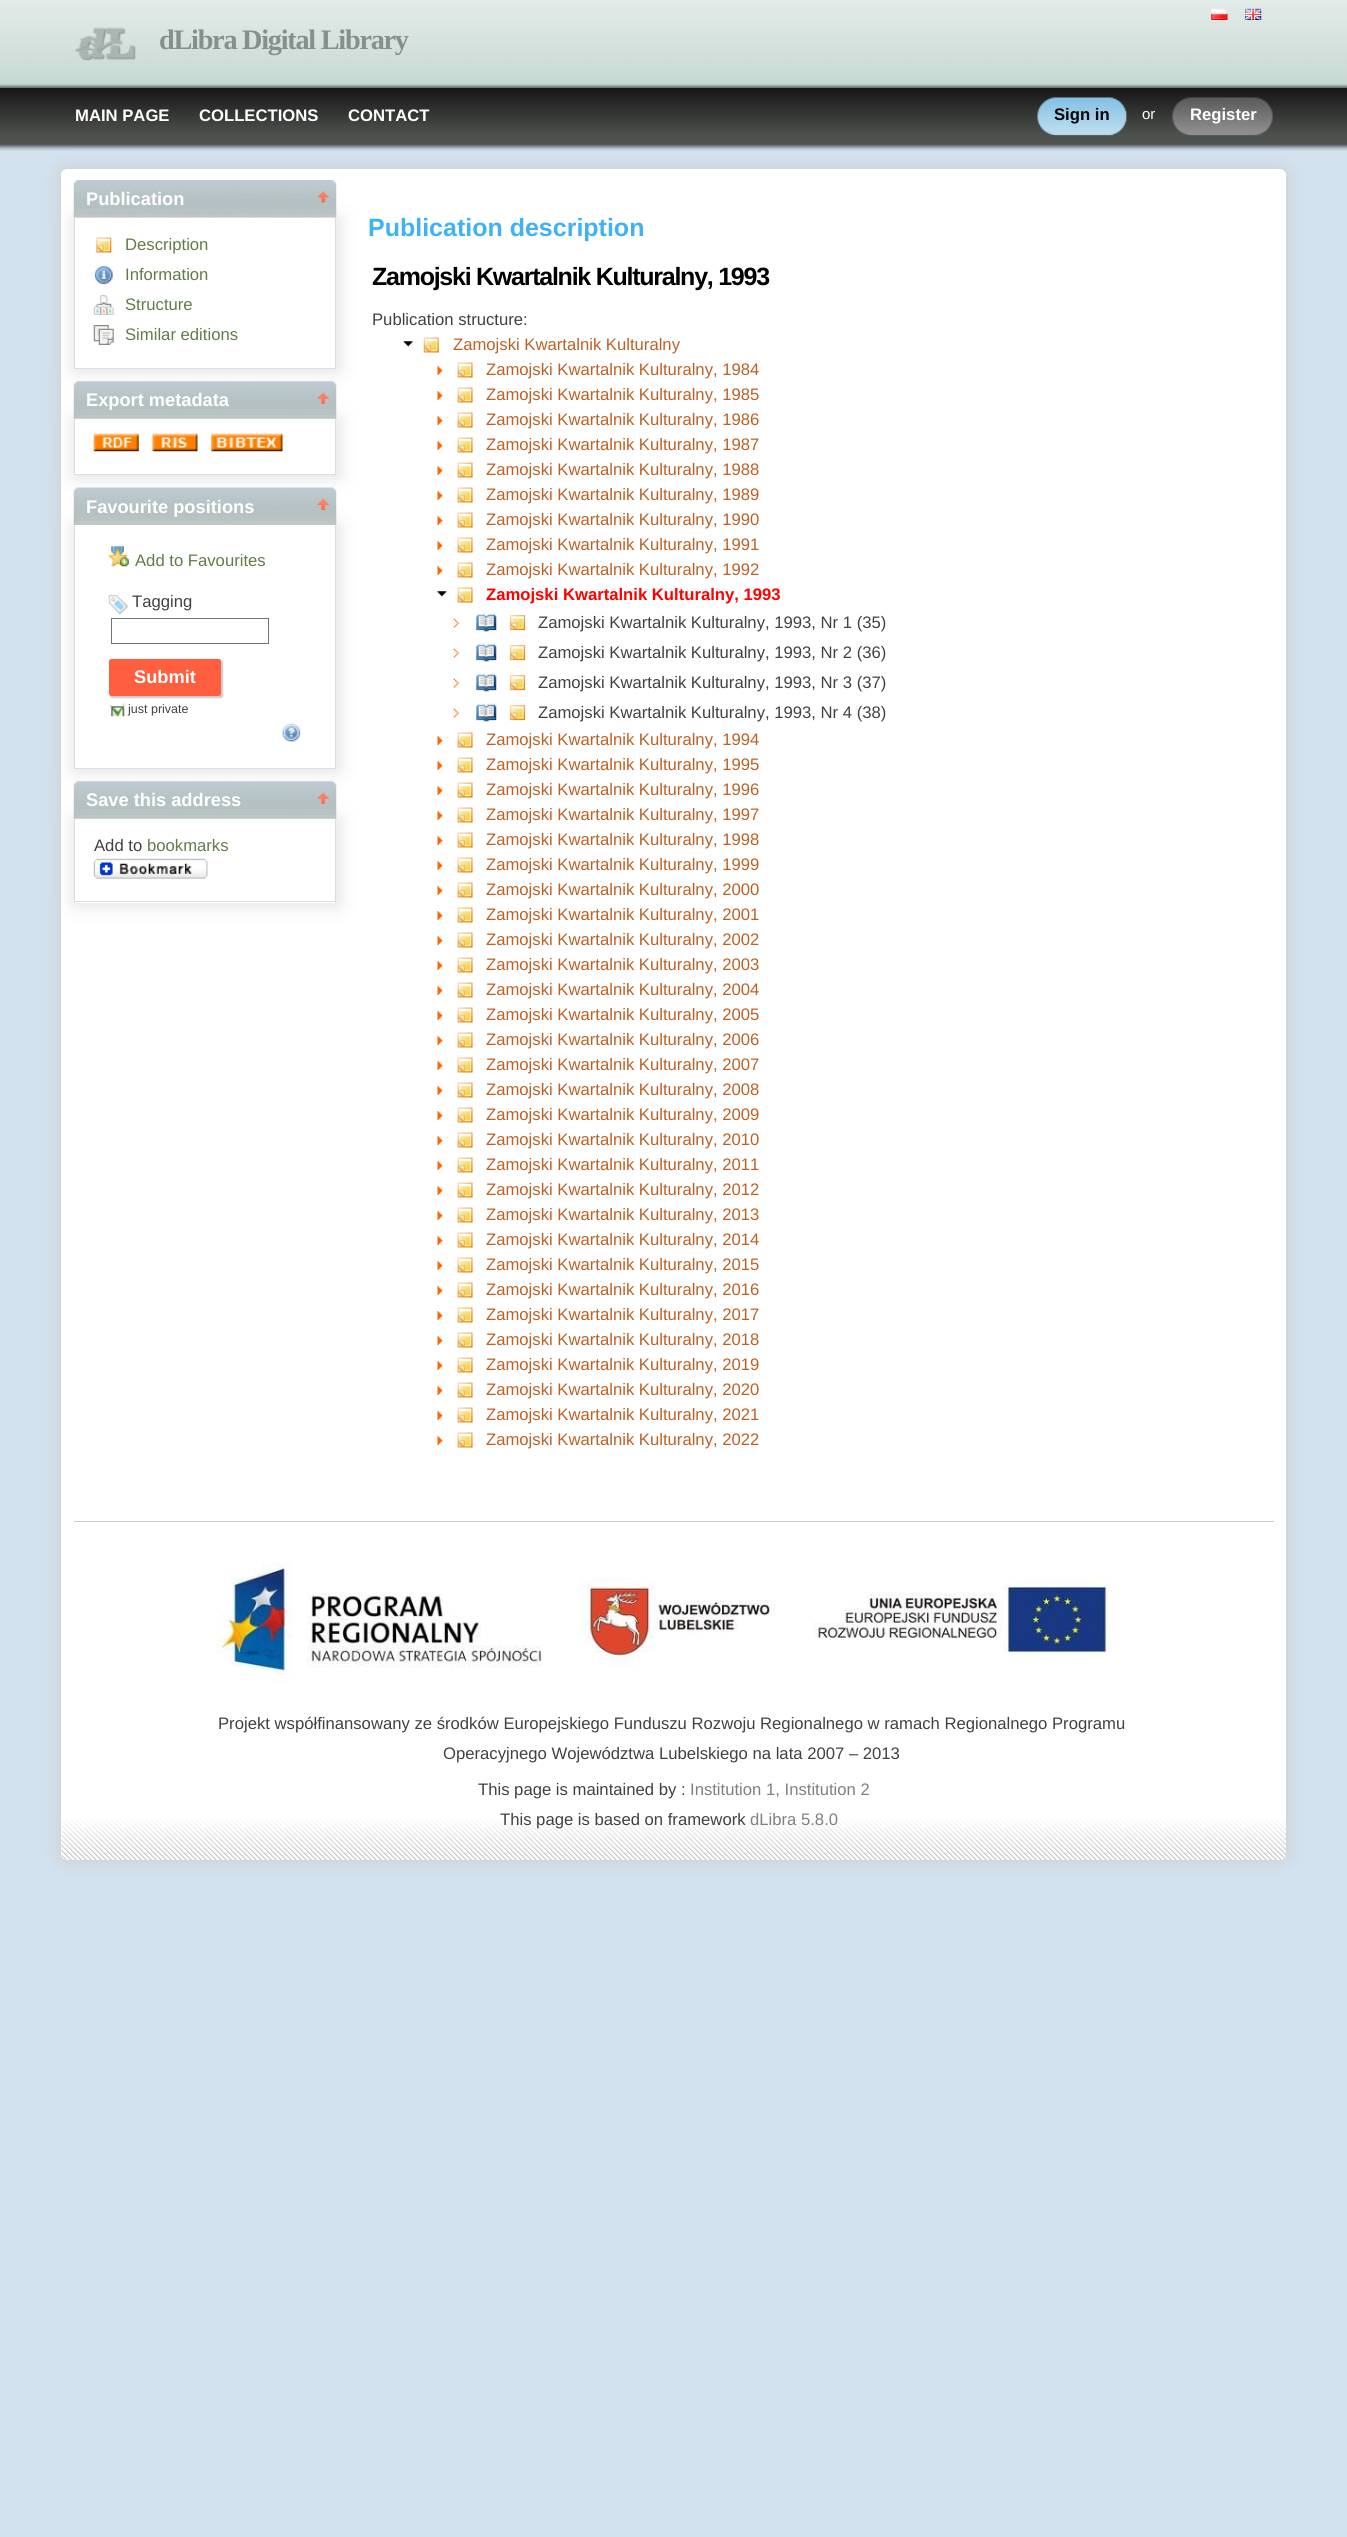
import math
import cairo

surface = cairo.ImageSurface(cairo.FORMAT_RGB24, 1347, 2537)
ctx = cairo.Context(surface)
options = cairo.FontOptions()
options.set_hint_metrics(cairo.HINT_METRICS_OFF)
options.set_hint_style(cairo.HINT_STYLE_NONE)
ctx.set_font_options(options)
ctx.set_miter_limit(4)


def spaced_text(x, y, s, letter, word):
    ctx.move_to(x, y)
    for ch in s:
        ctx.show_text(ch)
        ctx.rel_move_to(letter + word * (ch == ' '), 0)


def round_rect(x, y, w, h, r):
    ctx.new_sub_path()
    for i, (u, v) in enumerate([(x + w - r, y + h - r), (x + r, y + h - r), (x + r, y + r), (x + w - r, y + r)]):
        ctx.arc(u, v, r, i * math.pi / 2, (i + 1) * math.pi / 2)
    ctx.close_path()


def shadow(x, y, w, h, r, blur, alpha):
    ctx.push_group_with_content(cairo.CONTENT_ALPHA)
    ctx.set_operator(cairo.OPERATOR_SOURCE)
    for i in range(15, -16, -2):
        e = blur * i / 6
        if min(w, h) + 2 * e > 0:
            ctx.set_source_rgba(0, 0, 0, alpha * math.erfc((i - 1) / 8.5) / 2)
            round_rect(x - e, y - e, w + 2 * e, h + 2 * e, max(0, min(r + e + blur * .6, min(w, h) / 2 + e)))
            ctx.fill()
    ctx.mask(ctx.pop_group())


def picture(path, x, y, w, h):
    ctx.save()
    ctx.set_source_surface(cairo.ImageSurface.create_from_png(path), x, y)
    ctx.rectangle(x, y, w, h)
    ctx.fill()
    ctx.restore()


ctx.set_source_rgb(0.824, 0.886, 0.937)
ctx.paint()
picture("img1.png", 0, 0, 1347, 88)
picture("img2.png", 1211, 8, 17, 12)
picture("img3.png", 1245, 8, 17, 12)
picture("img4.png", 75, 27, 61, 34)
ctx.select_font_face("Liberation Serif", cairo.FONT_SLANT_NORMAL, cairo.FONT_WEIGHT_BOLD)
ctx.set_font_size(28.25)
ctx.set_source_rgb(0.522, 0.561, 0.549)
spaced_text(159, 49, "dLibra Digital Library", -1.25, 0)
ctx.set_source_rgb(0.8, 0.8, 0.8)
shadow(61, 169, 1225, 1691, 6, 9.5, 1)
picture("img5.png", 0, 87, 1347, 64)
ctx.select_font_face("Liberation Sans", cairo.FONT_SLANT_NORMAL, cairo.FONT_WEIGHT_BOLD)
ctx.set_font_size(16.67)
ctx.set_source_rgb(1, 1, 1)
ctx.move_to(75, 121)
ctx.show_text("MAIN PAGE")
ctx.move_to(199, 121)
ctx.show_text("COLLECTIONS")
ctx.move_to(348, 121)
ctx.show_text("CONTACT")
picture("img6.png", 1055, 97, 72, 39)
picture("img7.png", 1037, 97, 18, 38)
ctx.set_source_rgb(0, 0, 0)
ctx.move_to(1054, 120)
ctx.show_text("Sign in")
ctx.select_font_face("Liberation Sans")
ctx.set_font_size(15)
ctx.set_source_rgb(1, 1, 1)
ctx.move_to(1142, 119)
ctx.show_text("or")
picture("img8.png", 1190, 97, 83, 39)
picture("img9.png", 1172, 97, 18, 38)
ctx.select_font_face("Liberation Sans", cairo.FONT_SLANT_NORMAL, cairo.FONT_WEIGHT_BOLD)
ctx.set_font_size(16.67)
ctx.move_to(1190, 120)
ctx.show_text("Register")
round_rect(61, 169, 1225, 1691, 6)
ctx.fill()
picture("img10.png", 61, 1819, 1225, 41)
picture("img11.png", 73, 180, 264, 38)
ctx.save()
ctx.set_fill_rule(cairo.FILL_RULE_EVEN_ODD)
ctx.new_path()
ctx.move_to(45, 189)
ctx.line_to(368, 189)
ctx.line_to(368, 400)
ctx.line_to(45, 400)
ctx.close_path()
ctx.move_to(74, 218)
ctx.line_to(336, 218)
ctx.line_to(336, 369)
ctx.line_to(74, 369)
ctx.close_path()
ctx.clip()
ctx.set_source_rgb(0.867, 0.867, 0.867)
shadow(75, 219, 263, 151, 0, 9.5, 1)
ctx.restore()
ctx.set_font_size(18.25)
ctx.move_to(86, 205)
ctx.show_text("Publication")
picture("img12.png", 317, 191, 12, 12)
ctx.set_source_rgb(0.867, 0.867, 0.867)
ctx.rectangle(335, 218, 1, 151)
ctx.fill()
ctx.rectangle(74, 368, 262, 1)
ctx.fill()
ctx.rectangle(74, 218, 1, 151)
ctx.fill()
picture("img13.png", 96, 237, 16, 16)
ctx.select_font_face("Liberation Sans")
ctx.set_font_size(16.67)
ctx.set_source_rgb(0.38, 0.486, 0.278)
ctx.move_to(125, 250)
ctx.show_text("Description")
picture("img14.png", 94, 266, 19, 18)
ctx.move_to(125, 280)
ctx.show_text("Information")
picture("img15.png", 93, 295, 21, 20)
ctx.move_to(125, 310)
ctx.show_text("Structure")
picture("img16.png", 93, 325, 21, 20)
ctx.move_to(125, 340)
ctx.show_text("Similar editions")
picture("img20.png", 73, 381, 264, 38)
ctx.save()
ctx.set_fill_rule(cairo.FILL_RULE_EVEN_ODD)
ctx.new_path()
ctx.move_to(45, 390)
ctx.line_to(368, 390)
ctx.line_to(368, 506)
ctx.line_to(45, 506)
ctx.close_path()
ctx.move_to(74, 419)
ctx.line_to(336, 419)
ctx.line_to(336, 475)
ctx.line_to(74, 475)
ctx.close_path()
ctx.clip()
ctx.set_source_rgb(0.867, 0.867, 0.867)
shadow(75, 420, 263, 56, 0, 9.5, 1)
ctx.restore()
ctx.set_source_rgb(0.867, 0.867, 0.867)
ctx.rectangle(335, 419, 1, 56)
ctx.fill()
ctx.rectangle(74, 474, 262, 1)
ctx.fill()
ctx.rectangle(74, 419, 1, 56)
ctx.fill()
picture("img17.png", 93, 433, 46, 19)
picture("img18.png", 152, 433, 46, 19)
picture("img19.png", 211, 433, 72, 19)
ctx.select_font_face("Liberation Sans", cairo.FONT_SLANT_NORMAL, cairo.FONT_WEIGHT_BOLD)
ctx.set_font_size(18.25)
ctx.set_source_rgb(1, 1, 1)
ctx.move_to(86, 406)
ctx.show_text("Export metadata")
picture("img21.png", 317, 392, 12, 12)
picture("img22.png", 73, 487, 264, 38)
ctx.save()
ctx.set_fill_rule(cairo.FILL_RULE_EVEN_ODD)
ctx.new_path()
ctx.move_to(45, 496)
ctx.line_to(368, 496)
ctx.line_to(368, 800)
ctx.line_to(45, 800)
ctx.close_path()
ctx.move_to(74, 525)
ctx.line_to(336, 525)
ctx.line_to(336, 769)
ctx.line_to(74, 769)
ctx.close_path()
ctx.clip()
ctx.set_source_rgb(0.867, 0.867, 0.867)
shadow(75, 526, 263, 244, 0, 9.5, 1)
ctx.restore()
ctx.move_to(86, 513)
ctx.show_text("Favourite positions")
picture("img23.png", 317, 498, 12, 13)
ctx.set_source_rgb(0.867, 0.867, 0.867)
ctx.rectangle(335, 525, 1, 244)
ctx.fill()
ctx.rectangle(74, 768, 262, 1)
ctx.fill()
ctx.rectangle(74, 525, 1, 244)
ctx.fill()
picture("img24.png", 108, 546, 21, 21)
ctx.select_font_face("Liberation Sans")
ctx.set_font_size(16.67)
ctx.set_source_rgb(0.38, 0.486, 0.278)
ctx.move_to(135, 566)
ctx.show_text("Add to Favourites")
picture("img25.png", 108, 595, 20, 19)
ctx.set_source_rgb(0.255, 0.255, 0.255)
ctx.move_to(132, 607)
ctx.show_text("Tagging")
ctx.rectangle(111.5, 618.5, 157, 25)
ctx.set_source_rgb(0.424, 0.459, 0.478)
ctx.set_line_width(1)
ctx.stroke()
ctx.set_source_rgb(0.8, 0.8, 0.8)
shadow(110, 660, 113, 38, 2.5, 0.5, 1)
ctx.set_source_rgb(1, 0.373, 0.247)
round_rect(109, 659, 112, 37, 2.5)
ctx.fill()
ctx.select_font_face("Liberation Sans", cairo.FONT_SLANT_NORMAL, cairo.FONT_WEIGHT_BOLD)
ctx.set_font_size(18.25)
ctx.set_source_rgb(1, 1, 1)
ctx.move_to(134, 683)
ctx.show_text("Submit")
picture("img26.png", 109, 702, 17, 15)
ctx.select_font_face("Liberation Sans")
ctx.set_font_size(12.5)
ctx.set_source_rgb(0.255, 0.255, 0.255)
ctx.move_to(128, 713)
ctx.show_text("just private")
picture("img27.png", 282, 723, 19, 19)
picture("img28.png", 73, 781, 264, 38)
ctx.save()
ctx.set_fill_rule(cairo.FILL_RULE_EVEN_ODD)
ctx.new_path()
ctx.move_to(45, 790)
ctx.line_to(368, 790)
ctx.line_to(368, 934)
ctx.line_to(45, 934)
ctx.close_path()
ctx.move_to(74, 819)
ctx.line_to(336, 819)
ctx.line_to(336, 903)
ctx.line_to(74, 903)
ctx.close_path()
ctx.clip()
ctx.set_source_rgb(0.867, 0.867, 0.867)
shadow(75, 820, 263, 84, 0, 9.5, 1)
ctx.restore()
ctx.select_font_face("Liberation Sans", cairo.FONT_SLANT_NORMAL, cairo.FONT_WEIGHT_BOLD)
ctx.set_font_size(18.25)
ctx.set_source_rgb(1, 1, 1)
ctx.move_to(86, 806)
ctx.show_text("Save this address")
picture("img29.png", 317, 792, 12, 12)
ctx.set_source_rgb(0.867, 0.867, 0.867)
ctx.rectangle(335, 819, 1, 84)
ctx.fill()
ctx.rectangle(74, 901, 262, 1)
ctx.fill()
ctx.rectangle(74, 819, 1, 84)
ctx.fill()
ctx.select_font_face("Liberation Sans")
ctx.set_font_size(16.67)
ctx.set_source_rgb(0.255, 0.255, 0.255)
ctx.move_to(94, 851)
ctx.show_text("Add to")
ctx.set_source_rgb(0.38, 0.486, 0.278)
ctx.move_to(147, 851)
ctx.show_text("bookmarks")
picture("img30.png", 93, 858, 115, 21)
ctx.select_font_face("Liberation Sans", cairo.FONT_SLANT_NORMAL, cairo.FONT_WEIGHT_BOLD)
ctx.set_font_size(25)
ctx.set_source_rgb(0.247, 0.698, 0.957)
ctx.move_to(368, 236)
ctx.show_text("Publication description")
ctx.set_source_rgb(0, 0, 0)
spaced_text(372, 285, "Zamojski Kwartalnik Kulturalny, 1993", -1.25, 0)
ctx.select_font_face("Liberation Sans")
ctx.set_font_size(16.67)
ctx.set_source_rgb(0.255, 0.255, 0.255)
ctx.move_to(372, 325)
ctx.show_text("Publication structure:")
picture("img31.png", 403, 341, 10, 6)
picture("img32.png", 423, 337, 16, 16)
ctx.set_source_rgb(0.733, 0.38, 0.145)
ctx.move_to(453, 350)
ctx.show_text("Zamojski Kwartalnik Kulturalny")
picture("img33.png", 437, 366, 6, 9)
picture("img34.png", 457, 362, 16, 16)
ctx.move_to(486, 375)
ctx.show_text("Zamojski Kwartalnik Kulturalny, 1984")
picture("img33.png", 437, 391, 6, 9)
picture("img34.png", 457, 387, 16, 16)
ctx.move_to(486, 400)
ctx.show_text("Zamojski Kwartalnik Kulturalny, 1985")
picture("img33.png", 437, 416, 6, 9)
picture("img34.png", 457, 412, 16, 16)
ctx.move_to(486, 425)
ctx.show_text("Zamojski Kwartalnik Kulturalny, 1986")
picture("img33.png", 437, 441, 6, 9)
picture("img34.png", 457, 437, 16, 16)
ctx.move_to(486, 450)
ctx.show_text("Zamojski Kwartalnik Kulturalny, 1987")
picture("img33.png", 437, 466, 6, 9)
picture("img34.png", 457, 462, 16, 16)
ctx.move_to(486, 475)
ctx.show_text("Zamojski Kwartalnik Kulturalny, 1988")
picture("img33.png", 437, 491, 6, 9)
picture("img34.png", 457, 487, 16, 16)
ctx.move_to(486, 500)
ctx.show_text("Zamojski Kwartalnik Kulturalny, 1989")
picture("img33.png", 437, 516, 6, 9)
picture("img34.png", 457, 512, 16, 16)
ctx.move_to(486, 525)
ctx.show_text("Zamojski Kwartalnik Kulturalny, 1990")
picture("img33.png", 437, 541, 6, 9)
picture("img34.png", 457, 537, 16, 16)
ctx.move_to(486, 550)
ctx.show_text("Zamojski Kwartalnik Kulturalny, 1991")
picture("img33.png", 437, 566, 6, 9)
picture("img34.png", 457, 562, 16, 16)
ctx.move_to(486, 575)
ctx.show_text("Zamojski Kwartalnik Kulturalny, 1992")
picture("img35.png", 437, 591, 10, 6)
picture("img36.png", 457, 587, 16, 16)
ctx.select_font_face("Liberation Sans", cairo.FONT_SLANT_NORMAL, cairo.FONT_WEIGHT_BOLD)
ctx.set_source_rgb(1, 0, 0)
ctx.move_to(486, 600)
ctx.show_text("Zamojski Kwartalnik Kulturalny, 1993")
picture("img37.png", 453, 618, 6, 10)
picture("img38.png", 476, 613, 21, 19)
picture("img39.png", 509, 614, 17, 17)
ctx.select_font_face("Liberation Sans")
ctx.set_source_rgb(0.255, 0.255, 0.255)
ctx.move_to(538, 628)
ctx.show_text("Zamojski Kwartalnik Kulturalny, 1993, Nr 1 (35)")
picture("img37.png", 453, 648, 6, 10)
picture("img38.png", 476, 643, 21, 19)
picture("img39.png", 509, 644, 17, 17)
ctx.move_to(538, 658)
ctx.show_text("Zamojski Kwartalnik Kulturalny, 1993, Nr 2 (36)")
picture("img37.png", 453, 678, 6, 10)
picture("img38.png", 476, 673, 21, 19)
picture("img39.png", 509, 674, 17, 17)
ctx.move_to(538, 688)
ctx.show_text("Zamojski Kwartalnik Kulturalny, 1993, Nr 3 (37)")
picture("img37.png", 453, 708, 6, 10)
picture("img38.png", 476, 703, 21, 19)
picture("img39.png", 509, 704, 17, 17)
ctx.move_to(538, 718)
ctx.show_text("Zamojski Kwartalnik Kulturalny, 1993, Nr 4 (38)")
picture("img33.png", 437, 736, 6, 9)
picture("img34.png", 457, 732, 16, 16)
ctx.set_source_rgb(0.733, 0.38, 0.145)
ctx.move_to(486, 745)
ctx.show_text("Zamojski Kwartalnik Kulturalny, 1994")
picture("img33.png", 437, 761, 6, 9)
picture("img34.png", 457, 757, 16, 16)
ctx.move_to(486, 770)
ctx.show_text("Zamojski Kwartalnik Kulturalny, 1995")
picture("img33.png", 437, 786, 6, 9)
picture("img40.png", 457, 782, 16, 16)
ctx.move_to(486, 795)
ctx.show_text("Zamojski Kwartalnik Kulturalny, 1996")
picture("img33.png", 437, 811, 6, 9)
picture("img34.png", 457, 807, 16, 16)
ctx.move_to(486, 820)
ctx.show_text("Zamojski Kwartalnik Kulturalny, 1997")
picture("img33.png", 437, 836, 6, 9)
picture("img34.png", 457, 832, 16, 16)
ctx.move_to(486, 845)
ctx.show_text("Zamojski Kwartalnik Kulturalny, 1998")
picture("img33.png", 437, 861, 6, 9)
picture("img34.png", 457, 857, 16, 16)
ctx.move_to(486, 870)
ctx.show_text("Zamojski Kwartalnik Kulturalny, 1999")
picture("img33.png", 437, 886, 6, 9)
picture("img34.png", 457, 882, 16, 16)
ctx.move_to(486, 895)
ctx.show_text("Zamojski Kwartalnik Kulturalny, 2000")
picture("img33.png", 437, 911, 6, 9)
picture("img34.png", 457, 907, 16, 16)
ctx.move_to(486, 920)
ctx.show_text("Zamojski Kwartalnik Kulturalny, 2001")
picture("img33.png", 437, 936, 6, 9)
picture("img34.png", 457, 932, 16, 16)
ctx.move_to(486, 945)
ctx.show_text("Zamojski Kwartalnik Kulturalny, 2002")
picture("img33.png", 437, 961, 6, 9)
picture("img34.png", 457, 957, 16, 16)
ctx.move_to(486, 970)
ctx.show_text("Zamojski Kwartalnik Kulturalny, 2003")
picture("img33.png", 437, 986, 6, 9)
picture("img34.png", 457, 982, 16, 16)
ctx.move_to(486, 995)
ctx.show_text("Zamojski Kwartalnik Kulturalny, 2004")
picture("img33.png", 437, 1011, 6, 9)
picture("img34.png", 457, 1007, 16, 16)
ctx.move_to(486, 1020)
ctx.show_text("Zamojski Kwartalnik Kulturalny, 2005")
picture("img33.png", 437, 1036, 6, 9)
picture("img34.png", 457, 1032, 16, 16)
ctx.move_to(486, 1045)
ctx.show_text("Zamojski Kwartalnik Kulturalny, 2006")
picture("img33.png", 437, 1061, 6, 9)
picture("img34.png", 457, 1057, 16, 16)
ctx.move_to(486, 1070)
ctx.show_text("Zamojski Kwartalnik Kulturalny, 2007")
picture("img33.png", 437, 1086, 6, 9)
picture("img34.png", 457, 1082, 16, 16)
ctx.move_to(486, 1095)
ctx.show_text("Zamojski Kwartalnik Kulturalny, 2008")
picture("img33.png", 437, 1111, 6, 9)
picture("img34.png", 457, 1107, 16, 16)
ctx.move_to(486, 1120)
ctx.show_text("Zamojski Kwartalnik Kulturalny, 2009")
picture("img33.png", 437, 1136, 6, 9)
picture("img34.png", 457, 1132, 16, 16)
ctx.move_to(486, 1145)
ctx.show_text("Zamojski Kwartalnik Kulturalny, 2010")
picture("img33.png", 437, 1161, 6, 9)
picture("img34.png", 457, 1157, 16, 16)
ctx.move_to(486, 1170)
ctx.show_text("Zamojski Kwartalnik Kulturalny, 2011")
picture("img33.png", 437, 1186, 6, 9)
picture("img34.png", 457, 1182, 16, 16)
ctx.move_to(486, 1195)
ctx.show_text("Zamojski Kwartalnik Kulturalny, 2012")
picture("img33.png", 437, 1211, 6, 9)
picture("img34.png", 457, 1207, 16, 16)
ctx.move_to(486, 1220)
ctx.show_text("Zamojski Kwartalnik Kulturalny, 2013")
picture("img33.png", 437, 1236, 6, 9)
picture("img34.png", 457, 1232, 16, 16)
ctx.move_to(486, 1245)
ctx.show_text("Zamojski Kwartalnik Kulturalny, 2014")
picture("img33.png", 437, 1261, 6, 9)
picture("img34.png", 457, 1257, 16, 16)
ctx.move_to(486, 1270)
ctx.show_text("Zamojski Kwartalnik Kulturalny, 2015")
picture("img33.png", 437, 1286, 6, 9)
picture("img34.png", 457, 1282, 16, 16)
ctx.move_to(486, 1295)
ctx.show_text("Zamojski Kwartalnik Kulturalny, 2016")
picture("img33.png", 437, 1311, 6, 9)
picture("img34.png", 457, 1307, 16, 16)
ctx.move_to(486, 1320)
ctx.show_text("Zamojski Kwartalnik Kulturalny, 2017")
picture("img33.png", 437, 1336, 6, 9)
picture("img34.png", 457, 1332, 16, 16)
ctx.move_to(486, 1345)
ctx.show_text("Zamojski Kwartalnik Kulturalny, 2018")
picture("img33.png", 437, 1361, 6, 9)
picture("img34.png", 457, 1357, 16, 16)
ctx.move_to(486, 1370)
ctx.show_text("Zamojski Kwartalnik Kulturalny, 2019")
picture("img33.png", 437, 1386, 6, 9)
picture("img34.png", 457, 1382, 16, 16)
ctx.move_to(486, 1395)
ctx.show_text("Zamojski Kwartalnik Kulturalny, 2020")
picture("img33.png", 437, 1411, 6, 9)
picture("img34.png", 457, 1407, 16, 16)
ctx.move_to(486, 1420)
ctx.show_text("Zamojski Kwartalnik Kulturalny, 2021")
picture("img33.png", 437, 1436, 6, 9)
picture("img34.png", 457, 1432, 16, 16)
ctx.move_to(486, 1445)
ctx.show_text("Zamojski Kwartalnik Kulturalny, 2022")
ctx.set_source_rgb(0.8, 0.8, 0.8)
ctx.rectangle(74, 1521, 1200, 1)
ctx.fill()
picture("img41.png", 216, 1562, 893, 121)
ctx.set_source_rgb(0.255, 0.255, 0.255)
ctx.move_to(218, 1729)
ctx.show_text("Projekt współfinansowany ze środków Europejskiego Funduszu Rozwoju Regionalnego w ramach Regionalnego Programu")
ctx.move_to(443, 1759)
ctx.show_text("Operacyjnego Województwa Lubelskiego na lata 2007 – 2013")
ctx.move_to(478, 1795)
ctx.show_text("This page is maintained by :")
ctx.set_source_rgb(0.502, 0.502, 0.502)
ctx.move_to(690, 1795)
ctx.show_text("Institution 1, Institution 2")
ctx.set_source_rgb(0.255, 0.255, 0.255)
ctx.move_to(500, 1825)
ctx.show_text("This page is based on framework")
ctx.set_source_rgb(0.502, 0.502, 0.502)
ctx.move_to(750, 1825)
ctx.show_text("dLibra 5.8.0")
surface.write_to_png("page.png")
